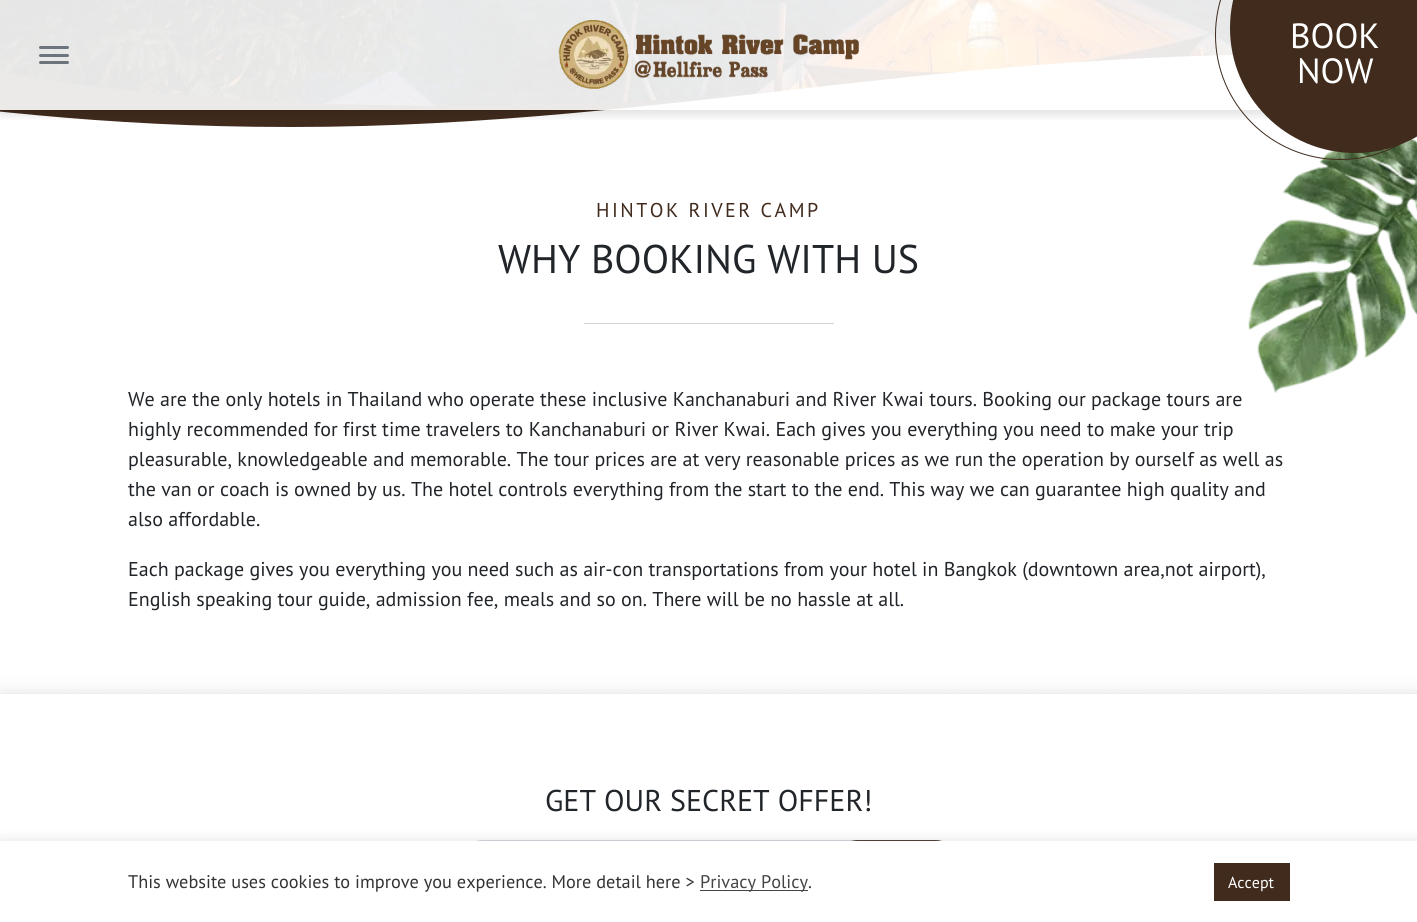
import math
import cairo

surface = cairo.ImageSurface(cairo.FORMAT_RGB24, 1417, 922)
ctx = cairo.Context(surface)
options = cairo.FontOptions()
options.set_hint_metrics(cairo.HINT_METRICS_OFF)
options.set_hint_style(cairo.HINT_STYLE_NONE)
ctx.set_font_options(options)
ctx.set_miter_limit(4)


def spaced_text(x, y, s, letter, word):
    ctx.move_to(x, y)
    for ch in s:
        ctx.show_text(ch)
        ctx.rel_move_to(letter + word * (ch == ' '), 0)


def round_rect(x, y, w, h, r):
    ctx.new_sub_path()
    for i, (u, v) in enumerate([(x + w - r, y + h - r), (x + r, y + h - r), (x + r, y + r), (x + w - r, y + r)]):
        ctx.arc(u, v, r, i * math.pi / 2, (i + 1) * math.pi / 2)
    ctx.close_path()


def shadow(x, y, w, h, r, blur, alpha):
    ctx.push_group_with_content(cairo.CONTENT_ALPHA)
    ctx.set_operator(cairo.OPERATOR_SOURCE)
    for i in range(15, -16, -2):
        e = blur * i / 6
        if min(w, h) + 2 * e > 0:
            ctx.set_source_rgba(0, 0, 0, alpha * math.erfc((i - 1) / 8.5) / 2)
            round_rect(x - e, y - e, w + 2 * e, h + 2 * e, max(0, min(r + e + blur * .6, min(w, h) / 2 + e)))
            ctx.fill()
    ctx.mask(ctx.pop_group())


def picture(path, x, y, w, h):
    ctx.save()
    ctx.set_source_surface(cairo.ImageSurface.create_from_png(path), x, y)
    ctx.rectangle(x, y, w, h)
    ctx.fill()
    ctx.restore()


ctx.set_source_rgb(1, 1, 1)
ctx.paint()
picture("img1.png", 0, 0, 1234, 106)
ctx.save()
ctx.rectangle(0, 49, 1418, 85)
ctx.clip()
ctx.set_source_rgb(0.251, 0.169, 0.114)
ctx.new_path()
ctx.move_to(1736, 187)
ctx.line_to(0, 187)
ctx.line_to(0, 72)
ctx.curve_to(0, 72, 326, 140, 872, 83)
ctx.curve_to(1308, 37, 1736, 121, 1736, 121)
ctx.close_path()
ctx.fill()
ctx.set_source_rgb(1, 1, 1)
ctx.new_path()
ctx.move_to(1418, 187)
ctx.line_to(-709, 187)
ctx.line_to(-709, 74)
ctx.curve_to(-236, 49, -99, 127, 291, 127)
ctx.curve_to(680, 127, 978, 38, 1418, 57)
ctx.close_path()
ctx.fill()
ctx.restore()
ctx.save()
ctx.rectangle(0, 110, 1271, 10)
ctx.clip()
ctx.set_source_rgb(0, 0, 0)
shadow(0, -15, 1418, 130, 0, 5, 0.12)
ctx.restore()
ctx.set_source_rgba(1, 1, 1, 0.9)
ctx.rectangle(0, 0, 1234, 110)
ctx.fill()
ctx.set_source_rgb(0.424, 0.459, 0.49)
round_rect(39, 46, 30, 3, 1.5)
ctx.fill()
round_rect(39, 54, 30, 3, 1.5)
ctx.fill()
round_rect(39, 61, 30, 3, 1.5)
ctx.fill()
picture("img2.png", 558, 20, 301, 69)
picture("img3.png", 1248, 138, 169, 255)
ctx.set_source_rgb(0.251, 0.169, 0.114)
ctx.arc(1355, 28, 125, 0, 2 * math.pi)
ctx.fill()
ctx.arc(1340, 35, 124.5, 0, 2 * math.pi)
ctx.set_line_width(1)
ctx.stroke()
ctx.select_font_face("PT Sans")
ctx.set_font_size(35)
ctx.set_source_rgb(1, 1, 1)
ctx.move_to(1290, 48)
ctx.show_text("BOOK")
ctx.move_to(1297, 83)
ctx.show_text("NOW")
ctx.set_font_size(20)
ctx.set_source_rgb(0.251, 0.169, 0.114)
spaced_text(596, 217, "HINTOK RIVER CAMP", 2.5, 0)
ctx.set_font_size(40)
ctx.set_source_rgb(0.129, 0.145, 0.161)
ctx.move_to(498, 273)
ctx.show_text("WHY BOOKING WITH US")
ctx.set_source_rgb(0.808, 0.831, 0.855)
ctx.rectangle(584, 323, 250, 1)
ctx.fill()
ctx.set_font_size(20)
ctx.set_source_rgb(0.129, 0.145, 0.161)
ctx.move_to(128, 406)
ctx.show_text("We are the only hotels in Thailand who operate these inclusive Kanchanaburi and River Kwai tours. Booking our package tours are")
ctx.move_to(128, 436)
ctx.show_text("highly recommended for first time travelers to Kanchanaburi or River Kwai. Each gives you everything you need to make your trip")
ctx.move_to(128, 466)
ctx.show_text("pleasurable, knowledgeable and memorable. The tour prices are at very reasonable prices as we run the operation by ourself as well as")
ctx.move_to(128, 496)
ctx.show_text("the van or coach is owned by us. The hotel controls everything from the start to the end. This way we can guarantee high quality and")
ctx.move_to(128, 526)
ctx.show_text("also affordable.")
ctx.move_to(128, 576)
ctx.show_text("Each package gives you everything you need such as air-con transportations from your hotel in Bangkok (downtown area,not airport),")
ctx.move_to(128, 606)
ctx.show_text("English speaking tour guide, admission fee, meals and so on. There will be no hassle at all.")
picture("img4.png", 0, 693, 1417, 1)
ctx.set_source_rgb(0, 0, 0)
shadow(0, 694, 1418, 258, 0, 10, 0.12)
ctx.set_source_rgb(1, 1, 1)
ctx.rectangle(0, 694, 1417, 147)
ctx.fill()
ctx.set_font_size(30)
ctx.set_source_rgb(0.129, 0.145, 0.161)
ctx.move_to(545, 811)
ctx.show_text("GET OUR SECRET OFFER!")
round_rect(459.5, 840.5, 499, 47, 23.5)
ctx.set_source_rgb(0.808, 0.831, 0.855)
ctx.stroke()
round_rect(834.5, 840.5, 124, 47, 23.5)
ctx.set_source_rgb(0.251, 0.169, 0.114)
ctx.stroke()
ctx.set_source_rgb(0.675, 0.671, 0.671)
shadow(0, 840, 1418, 81, 0, 6, 0.3)
ctx.set_source_rgb(1, 1, 1)
ctx.rectangle(0, 841, 1417, 81)
ctx.fill()
ctx.set_font_size(18.3)
ctx.set_source_rgb(0.2, 0.2, 0.2)
ctx.move_to(128, 888)
ctx.show_text("This website uses cookies to improve you experience. More detail here >")
ctx.set_source_rgb(0.267, 0.267, 0.267)
ctx.rectangle(700, 890, 108, 1)
ctx.fill()
ctx.move_to(700, 888)
ctx.show_text("Privacy Policy")
ctx.set_source_rgb(0.2, 0.2, 0.2)
ctx.move_to(808, 888)
ctx.show_text(".")
ctx.set_source_rgb(0.251, 0.169, 0.114)
ctx.rectangle(1214, 863, 76, 38)
ctx.fill()
ctx.set_font_size(16)
ctx.set_source_rgb(1, 1, 1)
ctx.move_to(1228, 888)
ctx.show_text("Accept")
surface.write_to_png("page.png")
